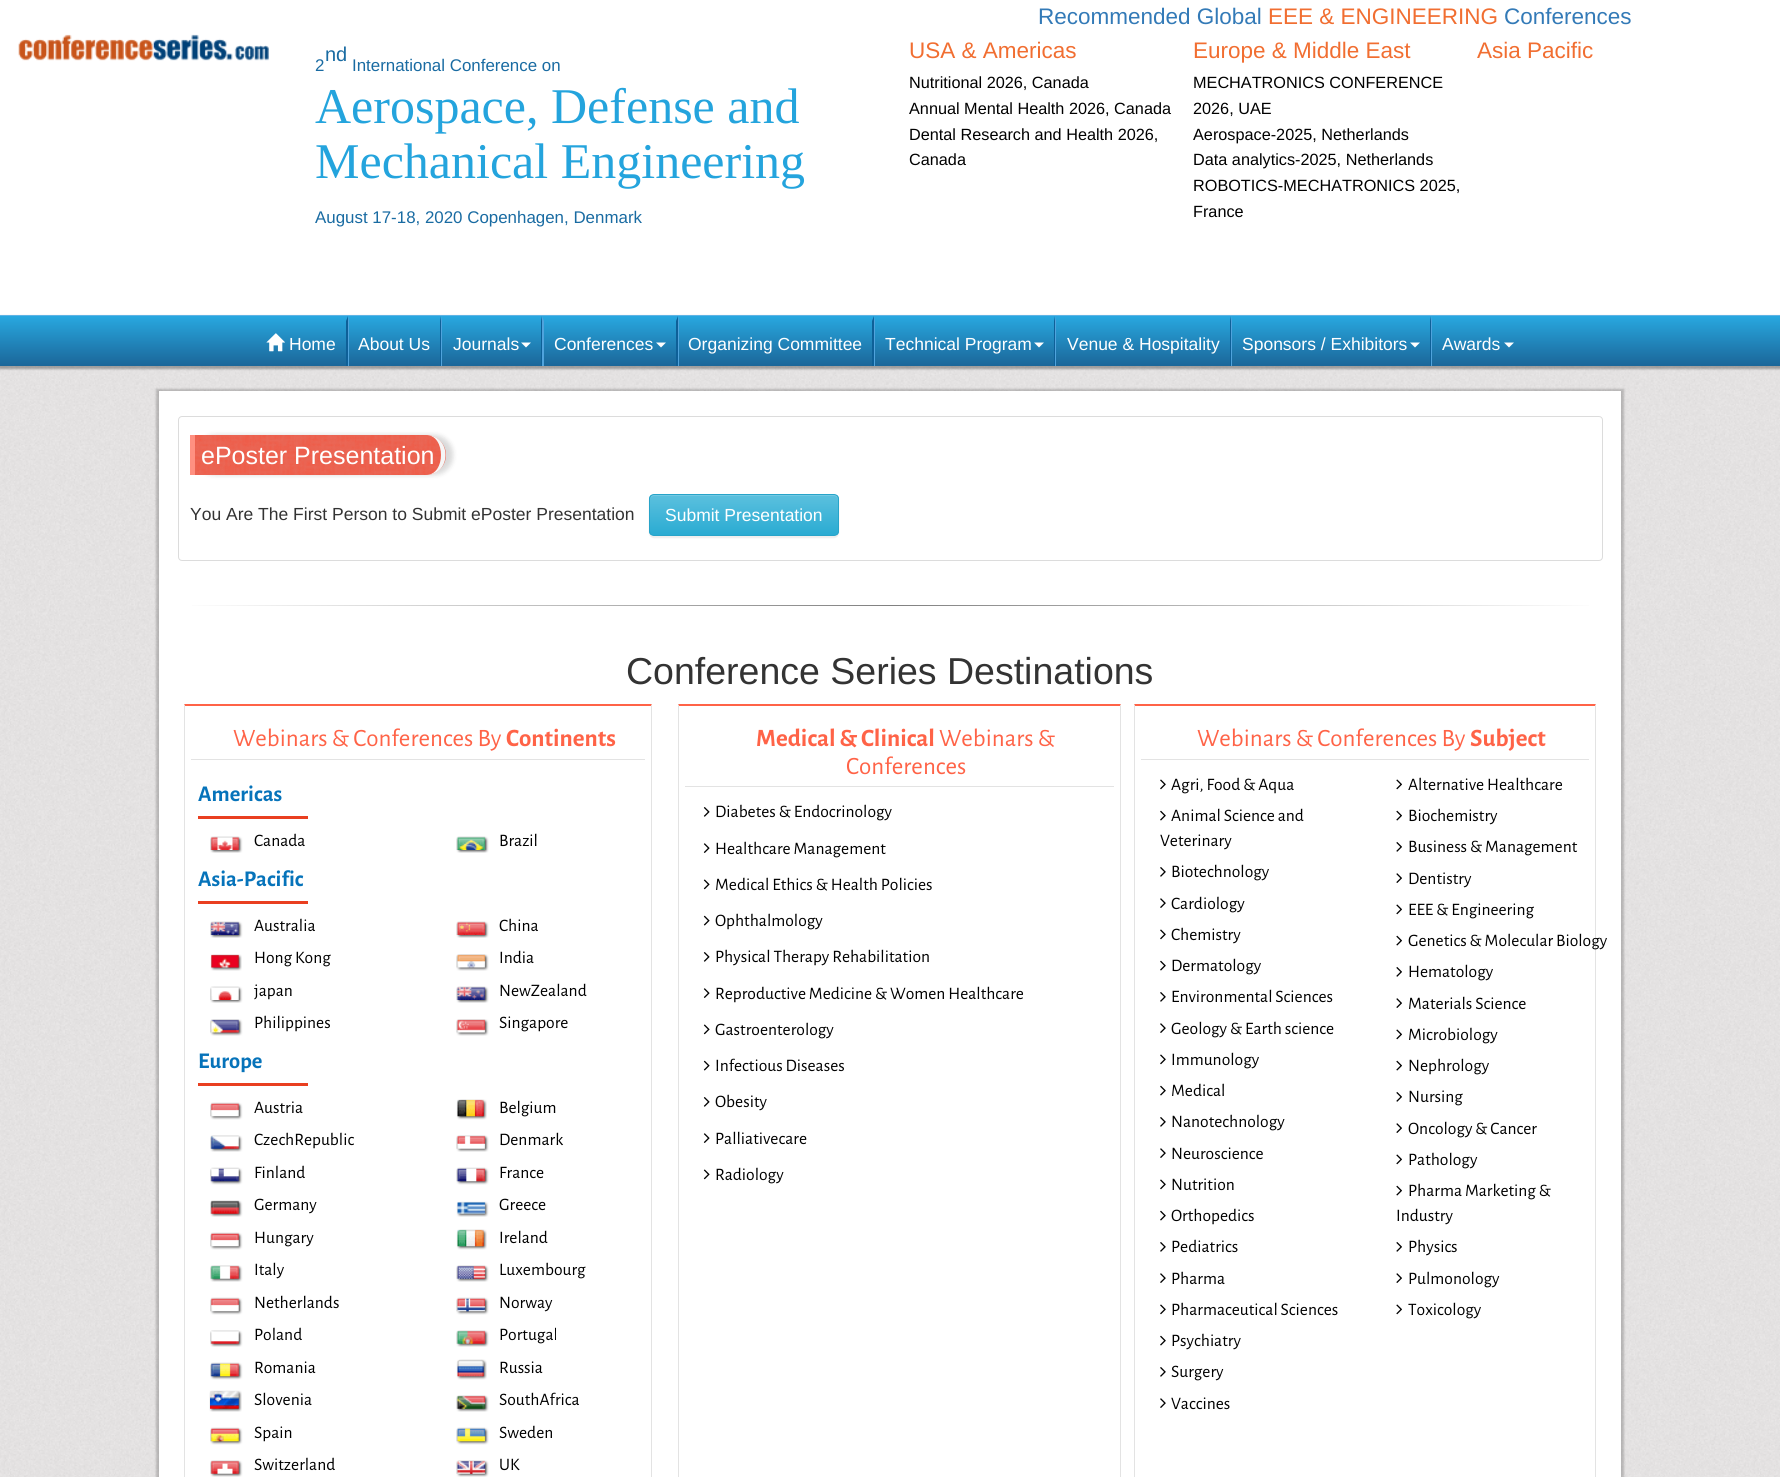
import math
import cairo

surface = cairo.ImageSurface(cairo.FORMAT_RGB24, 1780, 1477)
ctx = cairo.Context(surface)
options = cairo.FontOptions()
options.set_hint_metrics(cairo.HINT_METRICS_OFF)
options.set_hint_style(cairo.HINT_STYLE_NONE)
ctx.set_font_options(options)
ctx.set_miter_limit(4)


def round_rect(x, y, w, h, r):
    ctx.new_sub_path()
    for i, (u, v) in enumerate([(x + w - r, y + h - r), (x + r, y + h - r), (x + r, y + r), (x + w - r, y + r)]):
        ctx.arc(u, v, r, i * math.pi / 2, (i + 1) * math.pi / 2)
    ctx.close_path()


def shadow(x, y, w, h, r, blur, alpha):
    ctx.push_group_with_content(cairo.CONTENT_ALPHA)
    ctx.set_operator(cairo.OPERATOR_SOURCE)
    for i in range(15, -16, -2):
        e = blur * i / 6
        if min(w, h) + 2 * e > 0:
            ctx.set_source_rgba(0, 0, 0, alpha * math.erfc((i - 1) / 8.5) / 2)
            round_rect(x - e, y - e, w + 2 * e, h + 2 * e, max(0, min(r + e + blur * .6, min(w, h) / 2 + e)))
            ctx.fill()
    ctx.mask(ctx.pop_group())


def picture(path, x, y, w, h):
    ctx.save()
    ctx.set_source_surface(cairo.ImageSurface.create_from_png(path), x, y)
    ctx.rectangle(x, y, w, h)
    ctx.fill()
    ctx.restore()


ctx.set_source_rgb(0.91, 0.898, 0.898)
ctx.paint()
picture("img1.png", 0, 366, 1780, 1111)
ctx.set_source_rgb(1, 1, 1)
ctx.rectangle(0, 0, 1780, 315)
ctx.fill()
ctx.set_source_rgb(0.412, 0.78, 1)
ctx.rectangle(0, 315, 1780, 1)
ctx.fill()
picture("img2.png", 18, 34, 251, 27)
ctx.select_font_face("Liberation Sans")
ctx.set_font_size(20)
ctx.set_source_rgb(0.098, 0.42, 0.635)
ctx.move_to(325, 61)
ctx.show_text("nd")
ctx.set_font_size(16.9)
ctx.move_to(315, 71)
ctx.show_text("2")
ctx.move_to(352, 71)
ctx.show_text("International Conference on")
ctx.select_font_face("Liberation Serif")
ctx.set_font_size(50)
ctx.set_source_rgb(0.141, 0.643, 0.867)
ctx.move_to(315, 123)
ctx.show_text("Aerospace, Defense and")
ctx.move_to(315, 178)
ctx.show_text("Mechanical Engineering")
ctx.select_font_face("Liberation Sans")
ctx.set_font_size(16.9)
ctx.set_source_rgb(0.098, 0.42, 0.635)
ctx.move_to(315, 223)
ctx.show_text("August 17-18, 2020 Copenhagen, Denmark")
ctx.set_font_size(22.5)
ctx.set_source_rgb(0.2, 0.478, 0.718)
ctx.move_to(1038, 24)
ctx.show_text("Recommended Global")
ctx.set_source_rgb(0.945, 0.431, 0.192)
ctx.move_to(1268, 24)
ctx.show_text("EEE & ENGINEERING")
ctx.set_source_rgb(0.2, 0.478, 0.718)
ctx.move_to(1504, 24)
ctx.show_text("Conferences")
ctx.set_source_rgb(0.945, 0.431, 0.192)
ctx.move_to(909, 58)
ctx.show_text("USA & Americas")
ctx.set_font_size(16.25)
ctx.set_source_rgb(0, 0, 0)
ctx.move_to(909, 88)
ctx.show_text("Nutritional 2026, Canada")
ctx.move_to(909, 114)
ctx.show_text("Annual Mental Health 2026, Canada")
ctx.move_to(909, 140)
ctx.show_text("Dental Research and Health 2026,")
ctx.move_to(909, 165)
ctx.show_text("Canada")
ctx.set_font_size(22.5)
ctx.set_source_rgb(0.945, 0.431, 0.192)
ctx.move_to(1193, 58)
ctx.show_text("Europe & Middle East")
ctx.set_font_size(16.25)
ctx.set_source_rgb(0, 0, 0)
ctx.move_to(1193, 88)
ctx.show_text("MECHATRONICS CONFERENCE")
ctx.move_to(1193, 114)
ctx.show_text("2026, UAE")
ctx.move_to(1193, 140)
ctx.show_text("Aerospace-2025, Netherlands")
ctx.move_to(1193, 165)
ctx.show_text("Data analytics-2025, Netherlands")
ctx.move_to(1193, 191)
ctx.show_text("ROBOTICS-MECHATRONICS 2025,")
ctx.move_to(1193, 217)
ctx.show_text("France")
ctx.set_font_size(22.5)
ctx.set_source_rgb(0.945, 0.431, 0.192)
ctx.move_to(1477, 58)
ctx.show_text("Asia Pacific")
ctx.set_source_rgb(0, 0, 0)
shadow(-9, 316, 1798, 53, 6, 1, 0.3)
gradient = cairo.LinearGradient(890, 316, 890, 366)
gradient.add_color_stop_rgba(0, 0.157, 0.659, 0.878, 1)
gradient.add_color_stop_rgba(1, 0.106, 0.4, 0.6, 1)
ctx.set_source(gradient)
ctx.rectangle(0, 316, 1780, 50)
ctx.fill()
ctx.set_source_rgb(0.055, 0.376, 0.596)
ctx.new_path()
ctx.move_to(348, 316)
ctx.line_to(348, 366)
ctx.line_to(346, 366)
ctx.line_to(346, 321)
ctx.close_path()
ctx.fill()
picture("img3.png", 266, 333, 19, 19)
ctx.set_font_size(17.5)
ctx.set_source_rgb(1, 1, 1)
ctx.move_to(289, 350)
ctx.show_text("Home")
ctx.set_source_rgb(0.055, 0.376, 0.596)
ctx.new_path()
ctx.move_to(441, 316)
ctx.line_to(441, 366)
ctx.line_to(440, 366)
ctx.line_to(440, 321)
ctx.close_path()
ctx.fill()
ctx.set_source_rgb(0.314, 0.639, 0.863)
ctx.new_path()
ctx.move_to(348, 366)
ctx.line_to(348, 316)
ctx.line_to(349, 321)
ctx.line_to(349, 366)
ctx.close_path()
ctx.fill()
ctx.set_source_rgb(1, 1, 1)
ctx.move_to(358, 350)
ctx.show_text("About Us")
ctx.set_source_rgb(0.055, 0.376, 0.596)
ctx.new_path()
ctx.move_to(542, 316)
ctx.line_to(542, 366)
ctx.line_to(541, 366)
ctx.line_to(541, 321)
ctx.close_path()
ctx.fill()
ctx.set_source_rgb(0.314, 0.639, 0.863)
ctx.new_path()
ctx.move_to(441, 366)
ctx.line_to(441, 316)
ctx.line_to(442, 321)
ctx.line_to(442, 366)
ctx.close_path()
ctx.fill()
ctx.set_source_rgb(1, 1, 1)
ctx.move_to(453, 350)
ctx.show_text("Journals")
ctx.new_path()
ctx.move_to(521, 342.5)
ctx.line_to(531, 342.5)
ctx.line_to(526, 347.5)
ctx.close_path()
ctx.fill()
ctx.set_source_rgb(0.055, 0.376, 0.596)
ctx.new_path()
ctx.move_to(678, 316)
ctx.line_to(678, 366)
ctx.line_to(676, 366)
ctx.line_to(676, 321)
ctx.close_path()
ctx.fill()
ctx.set_source_rgb(0.314, 0.639, 0.863)
ctx.new_path()
ctx.move_to(542, 366)
ctx.line_to(542, 316)
ctx.line_to(544, 321)
ctx.line_to(544, 366)
ctx.close_path()
ctx.fill()
ctx.set_source_rgb(1, 1, 1)
ctx.move_to(554, 350)
ctx.show_text("Conferences")
ctx.new_path()
ctx.move_to(656, 342.5)
ctx.line_to(666, 342.5)
ctx.line_to(661, 347.5)
ctx.close_path()
ctx.fill()
ctx.set_source_rgb(0.055, 0.376, 0.596)
ctx.new_path()
ctx.move_to(874, 316)
ctx.line_to(874, 366)
ctx.line_to(872, 366)
ctx.line_to(872, 321)
ctx.close_path()
ctx.fill()
ctx.set_source_rgb(0.314, 0.639, 0.863)
ctx.new_path()
ctx.move_to(678, 366)
ctx.line_to(678, 316)
ctx.line_to(679, 321)
ctx.line_to(679, 366)
ctx.close_path()
ctx.fill()
ctx.set_source_rgb(1, 1, 1)
ctx.move_to(688, 350)
ctx.show_text("Organizing Committee")
ctx.set_source_rgb(0.055, 0.376, 0.596)
ctx.new_path()
ctx.move_to(1055, 316)
ctx.line_to(1055, 366)
ctx.line_to(1054, 366)
ctx.line_to(1054, 321)
ctx.close_path()
ctx.fill()
ctx.set_source_rgb(0.314, 0.639, 0.863)
ctx.new_path()
ctx.move_to(874, 366)
ctx.line_to(874, 316)
ctx.line_to(875, 321)
ctx.line_to(875, 366)
ctx.close_path()
ctx.fill()
ctx.set_source_rgb(1, 1, 1)
ctx.move_to(885, 350)
ctx.show_text("Technical Program")
ctx.new_path()
ctx.move_to(1034, 342.5)
ctx.line_to(1044, 342.5)
ctx.line_to(1039, 347.5)
ctx.close_path()
ctx.fill()
ctx.set_source_rgb(0.055, 0.376, 0.596)
ctx.new_path()
ctx.move_to(1231, 316)
ctx.line_to(1231, 366)
ctx.line_to(1230, 366)
ctx.line_to(1230, 321)
ctx.close_path()
ctx.fill()
ctx.set_source_rgb(0.314, 0.639, 0.863)
ctx.new_path()
ctx.move_to(1055, 366)
ctx.line_to(1055, 316)
ctx.line_to(1056, 321)
ctx.line_to(1056, 366)
ctx.close_path()
ctx.fill()
ctx.set_source_rgb(1, 1, 1)
ctx.move_to(1067, 350)
ctx.show_text("Venue & Hospitality")
ctx.set_source_rgb(0.055, 0.376, 0.596)
ctx.new_path()
ctx.move_to(1431, 316)
ctx.line_to(1431, 366)
ctx.line_to(1430, 366)
ctx.line_to(1430, 321)
ctx.close_path()
ctx.fill()
ctx.set_source_rgb(0.314, 0.639, 0.863)
ctx.new_path()
ctx.move_to(1231, 366)
ctx.line_to(1231, 316)
ctx.line_to(1232, 321)
ctx.line_to(1232, 366)
ctx.close_path()
ctx.fill()
ctx.set_source_rgb(1, 1, 1)
ctx.move_to(1242, 350)
ctx.show_text("Sponsors / Exhibitors")
ctx.new_path()
ctx.move_to(1410, 342.5)
ctx.line_to(1420, 342.5)
ctx.line_to(1415, 347.5)
ctx.close_path()
ctx.fill()
ctx.set_source_rgb(0.314, 0.639, 0.863)
ctx.new_path()
ctx.move_to(1431, 366)
ctx.line_to(1431, 316)
ctx.line_to(1432, 321)
ctx.line_to(1432, 366)
ctx.close_path()
ctx.fill()
ctx.set_source_rgb(1, 1, 1)
ctx.move_to(1442, 350)
ctx.show_text("Awards")
ctx.new_path()
ctx.move_to(1504, 342.5)
ctx.line_to(1514, 342.5)
ctx.line_to(1509, 347.5)
ctx.close_path()
ctx.fill()
ctx.set_source_rgb(0, 0, 0)
shadow(156, 389, 1468, 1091, 0, 1, 0.2)
ctx.set_source_rgb(1, 1, 1)
ctx.rectangle(159, 391, 1462, 1086)
ctx.fill()
round_rect(178.5, 416.5, 1424, 144, 3.5)
ctx.set_source_rgb(0.863, 0.863, 0.863)
ctx.set_line_width(1)
ctx.stroke()
ctx.set_source_rgb(0, 0, 0)
shadow(196, 435, 257, 40, 20, 2.5, 0.15)
ctx.set_source_rgb(0.961, 0.337, 0.255)
ctx.new_path()
ctx.move_to(190, 435)
ctx.line_to(426, 435)
ctx.curve_to(437, 435, 446, 444, 446, 455)
ctx.curve_to(446, 466, 437, 475, 426, 475)
ctx.line_to(190, 475)
ctx.close_path()
ctx.fill()
picture("img4.png", 195, 435, 251, 40)
ctx.set_source_rgb(0.961, 0.961, 0.961)
ctx.new_path()
ctx.move_to(426, 475)
ctx.curve_to(446, 475, 446, 435, 426, 435)
ctx.curve_to(452, 435, 452, 475, 426, 475)
ctx.close_path()
ctx.fill()
ctx.set_source_rgb(1, 0.565, 0.506)
ctx.rectangle(190, 435, 5, 40)
ctx.fill()
ctx.set_font_size(25)
ctx.set_source_rgb(1, 1, 1)
ctx.move_to(201, 464)
ctx.show_text("ePoster Presentation")
ctx.set_font_size(17.5)
ctx.set_source_rgb(0.2, 0.2, 0.2)
ctx.move_to(190, 520)
ctx.show_text("You Are The First Person to Submit ePoster Presentation")
ctx.set_source_rgb(0, 0, 0)
shadow(649, 495, 190, 43, 5, 0.5, 0.07)
ctx.save()
round_rect(649, 494, 190, 42, 5)
ctx.clip()
gradient = cairo.LinearGradient(744, 495, 744, 535)
gradient.add_color_stop_rgba(0, 0.357, 0.753, 0.871, 1)
gradient.add_color_stop_rgba(1, 0.165, 0.671, 0.824, 1)
ctx.set_source(gradient)
ctx.rectangle(649, 495, 190, 40)
ctx.fill()
ctx.restore()
ctx.set_source_rgb(0.451, 0.788, 0.89)
ctx.new_path()
ctx.move_to(654, 496)
ctx.line_to(834, 496)
ctx.curve_to(836, 496, 838, 498, 838, 500)
ctx.curve_to(838, 497, 837, 495, 834, 495)
ctx.line_to(653, 495)
ctx.curve_to(651, 496, 650, 498, 650, 500)
ctx.curve_to(650, 498, 652, 496, 654, 496)
ctx.close_path()
ctx.fill()
round_rect(649.5, 494.5, 189, 41, 4.5)
ctx.set_source_rgb(0.157, 0.643, 0.788)
ctx.stroke()
ctx.set_source_rgb(1, 1, 1)
ctx.move_to(665, 521)
ctx.show_text("Submit Presentation")
gradient = cairo.LinearGradient(178, 606, 1603, 606)
gradient.add_color_stop_rgba(0, 1, 1, 1, 1)
gradient.add_color_stop_rgba(0.5, 0.502, 0.502, 0.502, 1)
gradient.add_color_stop_rgba(1, 1, 1, 1, 1)
ctx.set_source(gradient)
ctx.rectangle(192, 605, 1397, 1)
ctx.fill()
ctx.set_font_size(37.5)
ctx.set_source_rgb(0.2, 0.2, 0.2)
ctx.move_to(626, 684)
ctx.show_text("Conference Series Destinations")
ctx.set_source_rgb(1, 0.388, 0.278)
ctx.new_path()
ctx.move_to(184, 704)
ctx.line_to(652, 704)
ctx.line_to(651, 706)
ctx.line_to(185, 706)
ctx.close_path()
ctx.fill()
ctx.set_source_rgb(0.89, 0.89, 0.89)
ctx.new_path()
ctx.move_to(652, 704)
ctx.line_to(652, 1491)
ctx.line_to(651, 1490)
ctx.line_to(651, 706)
ctx.close_path()
ctx.fill()
ctx.new_path()
ctx.move_to(184, 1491)
ctx.line_to(184, 704)
ctx.line_to(185, 706)
ctx.line_to(185, 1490)
ctx.close_path()
ctx.fill()
ctx.rectangle(191, 759, 454, 1)
ctx.fill()
ctx.select_font_face("Alegreya Sans")
ctx.set_font_size(25)
ctx.set_source_rgb(1, 0.388, 0.278)
ctx.move_to(233, 746)
ctx.show_text("Webinars & Conferences By")
ctx.select_font_face("Alegreya Sans", cairo.FONT_SLANT_NORMAL, cairo.FONT_WEIGHT_BOLD)
ctx.move_to(506, 746)
ctx.show_text("Continents")
ctx.set_source_rgb(0.914, 0.247, 0.125)
ctx.rectangle(198, 816, 110, 3)
ctx.fill()
ctx.set_font_size(22.5)
ctx.set_source_rgb(0.027, 0.451, 0.729)
ctx.move_to(198, 801)
ctx.show_text("Americas")
picture("img5.png", 210, 836, 33, 17)
ctx.select_font_face("Alegreya Sans")
ctx.set_font_size(17.5)
ctx.set_source_rgb(0, 0, 0)
ctx.move_to(254, 846)
ctx.show_text("Canada")
picture("img6.png", 456, 836, 33, 17)
ctx.move_to(499, 846)
ctx.show_text("Brazil")
ctx.set_source_rgb(0.914, 0.247, 0.125)
ctx.rectangle(198, 901, 110, 3)
ctx.fill()
ctx.select_font_face("Alegreya Sans", cairo.FONT_SLANT_NORMAL, cairo.FONT_WEIGHT_BOLD)
ctx.set_font_size(22.5)
ctx.set_source_rgb(0.027, 0.451, 0.729)
ctx.move_to(198, 886)
ctx.show_text("Asia-Pacific")
picture("img7.png", 210, 921, 33, 17)
ctx.select_font_face("Alegreya Sans")
ctx.set_font_size(17.5)
ctx.set_source_rgb(0, 0, 0)
ctx.move_to(254, 931)
ctx.show_text("Australia")
picture("img8.png", 456, 921, 33, 17)
ctx.move_to(499, 931)
ctx.show_text("China")
picture("img9.png", 210, 954, 32, 17)
ctx.move_to(254, 963)
ctx.show_text("Hong Kong")
picture("img10.png", 456, 954, 33, 17)
ctx.move_to(499, 963)
ctx.show_text("India")
picture("img11.png", 210, 986, 33, 17)
ctx.move_to(254, 996)
ctx.show_text("japan")
picture("img12.png", 456, 986, 33, 17)
ctx.move_to(499, 996)
ctx.show_text("NewZealand")
picture("img13.png", 210, 1019, 33, 17)
ctx.move_to(254, 1028)
ctx.show_text("Philippines")
picture("img14.png", 456, 1019, 33, 17)
ctx.move_to(499, 1028)
ctx.show_text("Singapore")
ctx.set_source_rgb(0.914, 0.247, 0.125)
ctx.rectangle(198, 1083, 110, 3)
ctx.fill()
ctx.select_font_face("Alegreya Sans", cairo.FONT_SLANT_NORMAL, cairo.FONT_WEIGHT_BOLD)
ctx.set_font_size(22.5)
ctx.set_source_rgb(0.027, 0.451, 0.729)
ctx.move_to(198, 1068)
ctx.show_text("Europe")
picture("img15.png", 210, 1102, 33, 18)
ctx.select_font_face("Alegreya Sans")
ctx.set_font_size(17.5)
ctx.set_source_rgb(0, 0, 0)
ctx.move_to(254, 1113)
ctx.show_text("Austria")
picture("img16.png", 456, 1099, 31, 21)
ctx.move_to(499, 1113)
ctx.show_text("Belgium")
picture("img17.png", 210, 1135, 33, 17)
ctx.move_to(254, 1145)
ctx.show_text("CzechRepublic")
picture("img18.png", 456, 1135, 33, 17)
ctx.move_to(499, 1145)
ctx.show_text("Denmark")
picture("img19.png", 210, 1167, 33, 18)
ctx.move_to(254, 1178)
ctx.show_text("Finland")
picture("img20.png", 456, 1167, 33, 18)
ctx.move_to(499, 1178)
ctx.show_text("France")
picture("img21.png", 210, 1200, 33, 17)
ctx.move_to(254, 1210)
ctx.show_text("Germany")
picture("img22.png", 456, 1201, 33, 16)
ctx.move_to(499, 1210)
ctx.show_text("Greece")
picture("img23.png", 210, 1232, 33, 18)
ctx.move_to(254, 1243)
ctx.show_text("Hungary")
picture("img24.png", 456, 1229, 31, 21)
ctx.move_to(499, 1243)
ctx.show_text("Ireland")
picture("img25.png", 210, 1265, 33, 17)
ctx.move_to(254, 1275)
ctx.show_text("Italy")
picture("img26.png", 456, 1265, 33, 17)
ctx.move_to(499, 1275)
ctx.show_text("Luxembourg")
picture("img15.png", 210, 1297, 33, 18)
ctx.move_to(254, 1308)
ctx.show_text("Netherlands")
picture("img27.png", 456, 1297, 33, 18)
ctx.move_to(499, 1308)
ctx.show_text("Norway")
picture("img28.png", 210, 1330, 33, 17)
ctx.move_to(254, 1340)
ctx.show_text("Poland")
picture("img29.png", 456, 1330, 33, 17)
ctx.move_to(499, 1340)
ctx.show_text("Portugal")
picture("img30.png", 210, 1362, 33, 18)
ctx.move_to(254, 1373)
ctx.show_text("Romania")
picture("img31.png", 456, 1359, 31, 21)
ctx.move_to(499, 1373)
ctx.show_text("Russia")
picture("img32.png", 209, 1390, 33, 22)
ctx.move_to(254, 1405)
ctx.show_text("Slovenia")
picture("img33.png", 456, 1395, 33, 17)
ctx.move_to(499, 1405)
ctx.show_text("SouthAfrica")
picture("img34.png", 210, 1427, 33, 18)
ctx.move_to(254, 1438)
ctx.show_text("Spain")
picture("img35.png", 456, 1427, 33, 18)
ctx.move_to(499, 1438)
ctx.show_text("Sweden")
picture("img36.png", 210, 1460, 33, 17)
ctx.move_to(254, 1470)
ctx.show_text("Switzerland")
picture("img37.png", 456, 1460, 33, 17)
ctx.move_to(499, 1470)
ctx.show_text("UK")
ctx.set_source_rgb(1, 0.388, 0.278)
ctx.new_path()
ctx.move_to(678, 704)
ctx.line_to(1121, 704)
ctx.line_to(1120, 706)
ctx.line_to(679, 706)
ctx.close_path()
ctx.fill()
ctx.set_source_rgb(0.89, 0.89, 0.89)
ctx.new_path()
ctx.move_to(1121, 704)
ctx.line_to(1121, 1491)
ctx.line_to(1120, 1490)
ctx.line_to(1120, 706)
ctx.close_path()
ctx.fill()
ctx.new_path()
ctx.move_to(678, 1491)
ctx.line_to(678, 704)
ctx.line_to(679, 706)
ctx.line_to(679, 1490)
ctx.close_path()
ctx.fill()
ctx.rectangle(685, 786, 429, 1)
ctx.fill()
ctx.select_font_face("Alegreya Sans", cairo.FONT_SLANT_NORMAL, cairo.FONT_WEIGHT_BOLD)
ctx.set_font_size(25)
ctx.set_source_rgb(1, 0.388, 0.278)
ctx.move_to(756, 746)
ctx.show_text("Medical & Clinical")
ctx.select_font_face("Alegreya Sans")
ctx.move_to(939, 746)
ctx.show_text("Webinars &")
ctx.move_to(846, 774)
ctx.show_text("Conferences")
picture("img38.png", 703, 807, 7, 10)
ctx.set_font_size(17.5)
ctx.set_source_rgb(0, 0, 0)
ctx.move_to(715, 817)
ctx.show_text("Diabetes & Endocrinology")
picture("img39.png", 703, 843, 7, 10)
ctx.move_to(715, 854)
ctx.show_text("Healthcare Management")
picture("img40.png", 703, 879, 7, 11)
ctx.move_to(715, 890)
ctx.show_text("Medical Ethics & Health Policies")
picture("img41.png", 703, 915, 7, 11)
ctx.move_to(715, 926)
ctx.show_text("Ophthalmology")
picture("img38.png", 703, 952, 7, 10)
ctx.move_to(715, 962)
ctx.show_text("Physical Therapy Rehabilitation")
picture("img39.png", 703, 988, 7, 10)
ctx.move_to(715, 999)
ctx.show_text("Reproductive Medicine & Women Healthcare")
picture("img40.png", 703, 1024, 7, 11)
ctx.move_to(715, 1035)
ctx.show_text("Gastroenterology")
picture("img41.png", 703, 1060, 7, 11)
ctx.move_to(715, 1071)
ctx.show_text("Infectious Diseases")
picture("img38.png", 703, 1097, 7, 10)
ctx.move_to(715, 1107)
ctx.show_text("Obesity")
picture("img39.png", 703, 1133, 7, 10)
ctx.move_to(715, 1144)
ctx.show_text("Palliativecare")
picture("img40.png", 703, 1169, 7, 11)
ctx.move_to(715, 1180)
ctx.show_text("Radiology")
ctx.set_source_rgb(1, 0.388, 0.278)
ctx.new_path()
ctx.move_to(1134, 704)
ctx.line_to(1596, 704)
ctx.line_to(1595, 706)
ctx.line_to(1135, 706)
ctx.close_path()
ctx.fill()
ctx.set_source_rgb(0.89, 0.89, 0.89)
ctx.new_path()
ctx.move_to(1596, 704)
ctx.line_to(1596, 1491)
ctx.line_to(1595, 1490)
ctx.line_to(1595, 706)
ctx.close_path()
ctx.fill()
ctx.new_path()
ctx.move_to(1134, 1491)
ctx.line_to(1134, 704)
ctx.line_to(1135, 706)
ctx.line_to(1135, 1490)
ctx.close_path()
ctx.fill()
ctx.rectangle(1141, 759, 448, 1)
ctx.fill()
ctx.set_font_size(25)
ctx.set_source_rgb(1, 0.388, 0.278)
ctx.move_to(1197, 746)
ctx.show_text("Webinars & Conferences By")
ctx.select_font_face("Alegreya Sans", cairo.FONT_SLANT_NORMAL, cairo.FONT_WEIGHT_BOLD)
ctx.move_to(1470, 746)
ctx.show_text("Subject")
picture("img42.png", 1160, 779, 6, 11)
ctx.select_font_face("Alegreya Sans")
ctx.set_font_size(17.5)
ctx.set_source_rgb(0, 0, 0)
ctx.move_to(1171, 790)
ctx.show_text("Agri, Food & Aqua")
picture("img43.png", 1160, 810, 6, 11)
ctx.move_to(1171, 821)
ctx.show_text("Animal Science and")
ctx.move_to(1160, 846)
ctx.show_text("Veterinary")
picture("img44.png", 1160, 867, 6, 10)
ctx.move_to(1171, 877)
ctx.show_text("Biotechnology")
picture("img45.png", 1160, 898, 6, 10)
ctx.move_to(1171, 909)
ctx.show_text("Cardiology")
picture("img42.png", 1160, 929, 6, 11)
ctx.move_to(1171, 940)
ctx.show_text("Chemistry")
picture("img43.png", 1160, 960, 6, 11)
ctx.move_to(1171, 971)
ctx.show_text("Dermatology")
picture("img44.png", 1160, 992, 6, 10)
ctx.move_to(1171, 1002)
ctx.show_text("Environmental Sciences")
picture("img45.png", 1160, 1023, 6, 10)
ctx.move_to(1171, 1034)
ctx.show_text("Geology & Earth science")
picture("img42.png", 1160, 1054, 6, 11)
ctx.move_to(1171, 1065)
ctx.show_text("Immunology")
picture("img43.png", 1160, 1085, 6, 11)
ctx.move_to(1171, 1096)
ctx.show_text("Medical")
picture("img44.png", 1160, 1117, 6, 10)
ctx.move_to(1171, 1127)
ctx.show_text("Nanotechnology")
picture("img45.png", 1160, 1148, 6, 10)
ctx.move_to(1171, 1159)
ctx.show_text("Neuroscience")
picture("img42.png", 1160, 1179, 6, 11)
ctx.move_to(1171, 1190)
ctx.show_text("Nutrition")
picture("img43.png", 1160, 1210, 6, 11)
ctx.move_to(1171, 1221)
ctx.show_text("Orthopedics")
picture("img44.png", 1160, 1242, 6, 10)
ctx.move_to(1171, 1252)
ctx.show_text("Pediatrics")
picture("img45.png", 1160, 1273, 6, 10)
ctx.move_to(1171, 1284)
ctx.show_text("Pharma")
picture("img42.png", 1160, 1304, 6, 11)
ctx.move_to(1171, 1315)
ctx.show_text("Pharmaceutical Sciences")
picture("img43.png", 1160, 1335, 6, 11)
ctx.move_to(1171, 1346)
ctx.show_text("Psychiatry")
picture("img44.png", 1160, 1367, 6, 10)
ctx.move_to(1171, 1377)
ctx.show_text("Surgery")
picture("img45.png", 1160, 1398, 6, 10)
ctx.move_to(1171, 1409)
ctx.show_text("Vaccines")
picture("img46.png", 1396, 779, 6, 11)
ctx.move_to(1408, 790)
ctx.show_text("Alternative Healthcare")
picture("img47.png", 1396, 810, 6, 11)
ctx.move_to(1408, 821)
ctx.show_text("Biochemistry")
picture("img48.png", 1396, 842, 6, 10)
ctx.move_to(1408, 852)
ctx.show_text("Business & Management")
picture("img49.png", 1396, 873, 6, 10)
ctx.move_to(1408, 884)
ctx.show_text("Dentistry")
picture("img46.png", 1396, 904, 6, 11)
ctx.move_to(1408, 915)
ctx.show_text("EEE & Engineering")
picture("img47.png", 1396, 935, 6, 11)
ctx.move_to(1408, 946)
ctx.show_text("Genetics & Molecular Biology")
picture("img48.png", 1396, 967, 6, 10)
ctx.move_to(1408, 977)
ctx.show_text("Hematology")
picture("img49.png", 1396, 998, 6, 10)
ctx.move_to(1408, 1009)
ctx.show_text("Materials Science")
picture("img46.png", 1396, 1029, 6, 11)
ctx.move_to(1408, 1040)
ctx.show_text("Microbiology")
picture("img47.png", 1396, 1060, 6, 11)
ctx.move_to(1408, 1071)
ctx.show_text("Nephrology")
picture("img48.png", 1396, 1092, 6, 10)
ctx.move_to(1408, 1102)
ctx.show_text("Nursing")
picture("img49.png", 1396, 1123, 6, 10)
ctx.move_to(1408, 1134)
ctx.show_text("Oncology & Cancer")
picture("img46.png", 1396, 1154, 6, 11)
ctx.move_to(1408, 1165)
ctx.show_text("Pathology")
picture("img47.png", 1396, 1185, 6, 11)
ctx.move_to(1408, 1196)
ctx.show_text("Pharma Marketing &")
ctx.move_to(1396, 1221)
ctx.show_text("Industry")
picture("img48.png", 1396, 1242, 6, 10)
ctx.move_to(1408, 1252)
ctx.show_text("Physics")
picture("img49.png", 1396, 1273, 6, 10)
ctx.move_to(1408, 1284)
ctx.show_text("Pulmonology")
picture("img46.png", 1396, 1304, 6, 11)
ctx.move_to(1408, 1315)
ctx.show_text("Toxicology")
surface.write_to_png("page.png")
